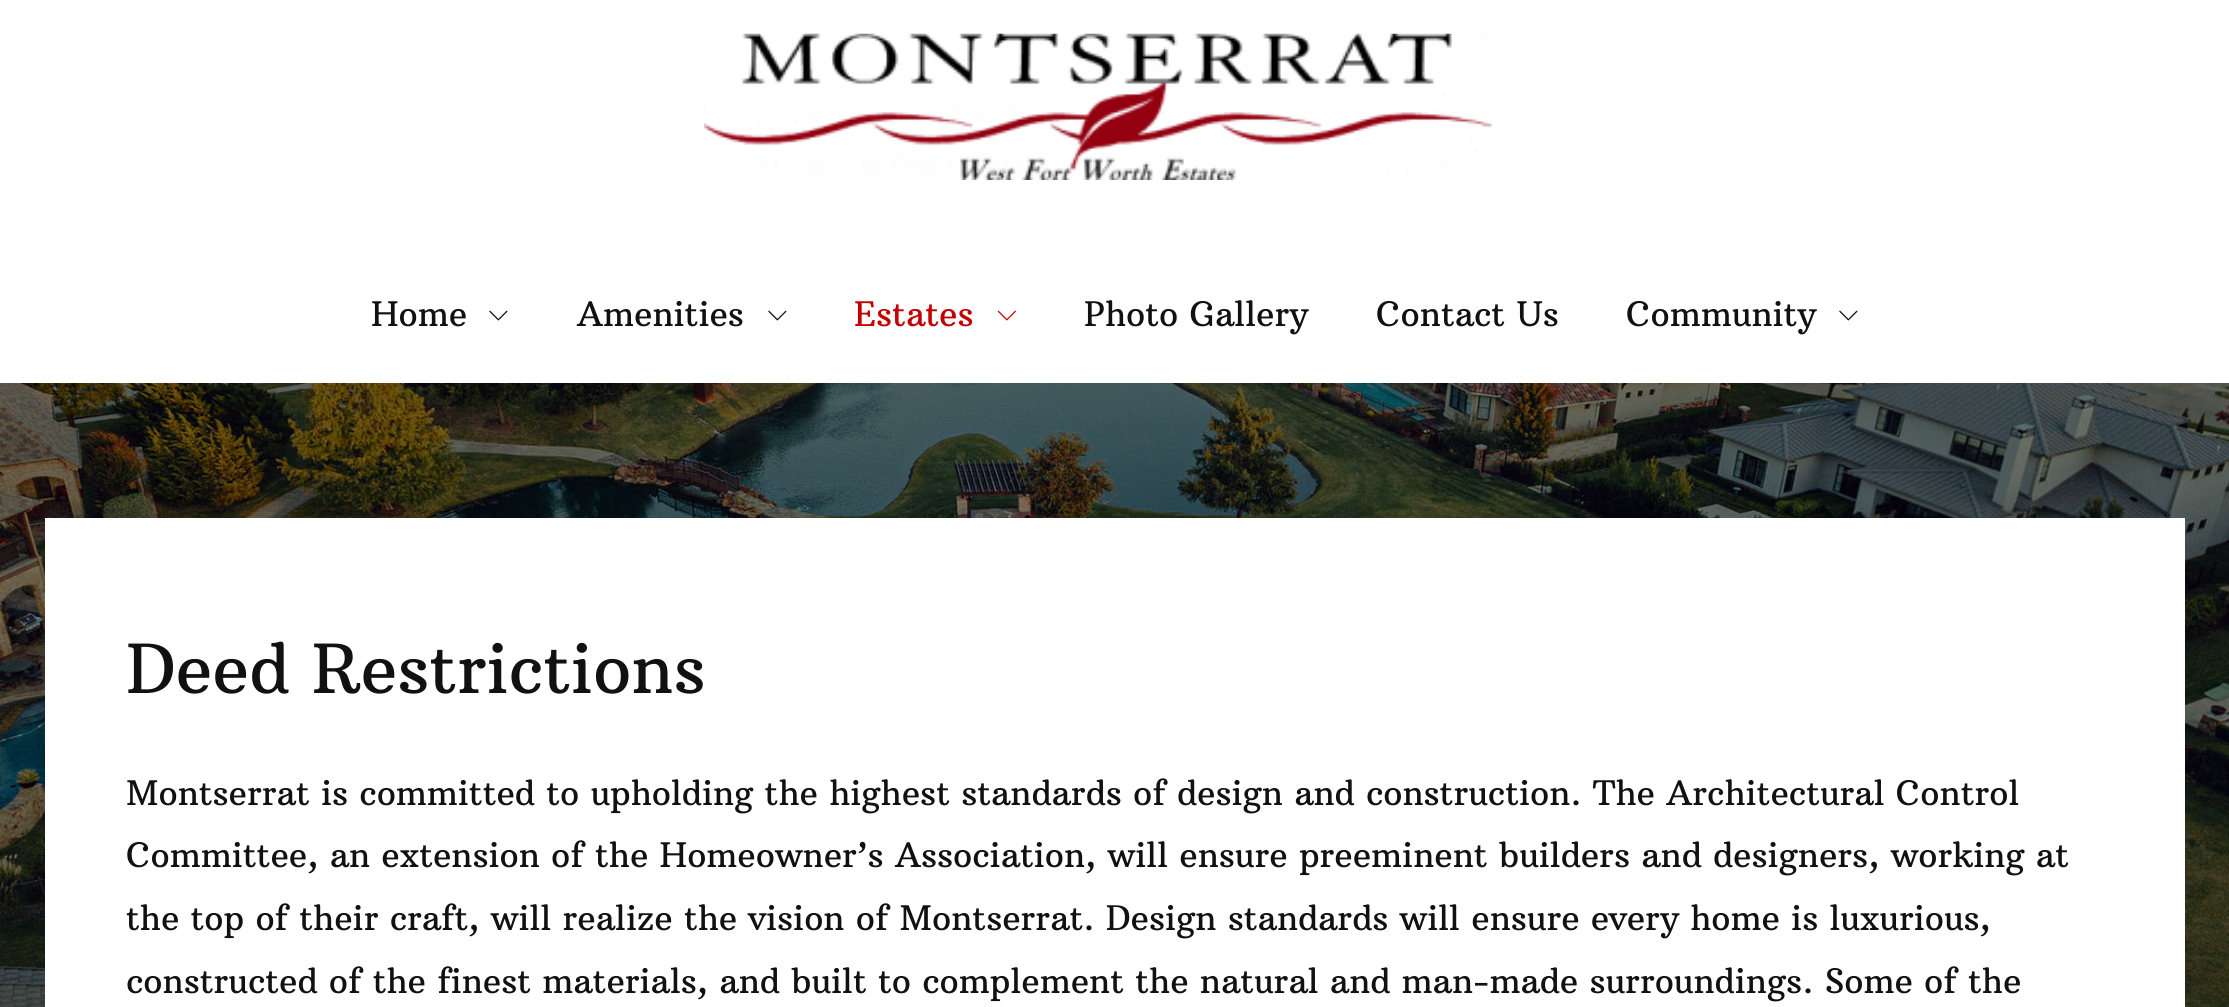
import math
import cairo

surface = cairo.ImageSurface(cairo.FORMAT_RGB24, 2229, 1007)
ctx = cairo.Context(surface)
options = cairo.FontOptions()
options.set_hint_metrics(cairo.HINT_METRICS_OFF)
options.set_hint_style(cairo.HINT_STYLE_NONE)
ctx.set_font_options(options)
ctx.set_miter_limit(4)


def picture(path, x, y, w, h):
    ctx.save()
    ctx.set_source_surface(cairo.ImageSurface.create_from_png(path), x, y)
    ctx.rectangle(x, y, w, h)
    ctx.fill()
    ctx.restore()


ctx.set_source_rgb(1, 1, 1)
ctx.paint()
picture("img1.png", 0, 383, 2229, 624)
picture("img2.png", 704, 33, 788, 147)
ctx.select_font_face("Arbutus Slab")
ctx.set_font_size(33.75)
ctx.set_source_rgb(0.067, 0.067, 0.067)
ctx.move_to(371, 326)
ctx.show_text("Home")
picture("img3.png", 489, 310, 19, 11)
ctx.move_to(577, 326)
ctx.show_text("Amenities")
picture("img3.png", 768, 310, 19, 11)
ctx.set_source_rgb(0.769, 0.004, 0.004)
ctx.move_to(854, 326)
ctx.show_text("Estates")
picture("img4.png", 997, 310, 19, 11)
ctx.set_source_rgb(0.067, 0.067, 0.067)
ctx.move_to(1084, 326)
ctx.show_text("Photo Gallery")
ctx.move_to(1376, 326)
ctx.show_text("Contact Us")
ctx.move_to(1626, 326)
ctx.show_text("Community")
picture("img3.png", 1839, 310, 19, 11)
ctx.set_source_rgb(1, 1, 1)
ctx.rectangle(45, 518, 2140, 489)
ctx.fill()
ctx.set_font_size(67.5)
ctx.set_source_rgb(0.067, 0.067, 0.067)
ctx.move_to(126, 693)
ctx.show_text("Deed Restrictions")
ctx.set_font_size(33.75)
ctx.move_to(126, 805)
ctx.show_text("Montserrat is committed to upholding the highest standards of design and construction. The Architectural Control")
ctx.move_to(126, 867)
ctx.show_text("Committee, an extension of the Homeowner’s Association, will ensure preeminent builders and designers, working at")
ctx.move_to(126, 930)
ctx.show_text("the top of their craft, will realize the vision of Montserrat. Design standards will ensure every home is luxurious,")
ctx.move_to(126, 993)
ctx.show_text("constructed of the finest materials, and built to complement the natural and man-made surroundings. Some of the")
surface.write_to_png("page.png")
